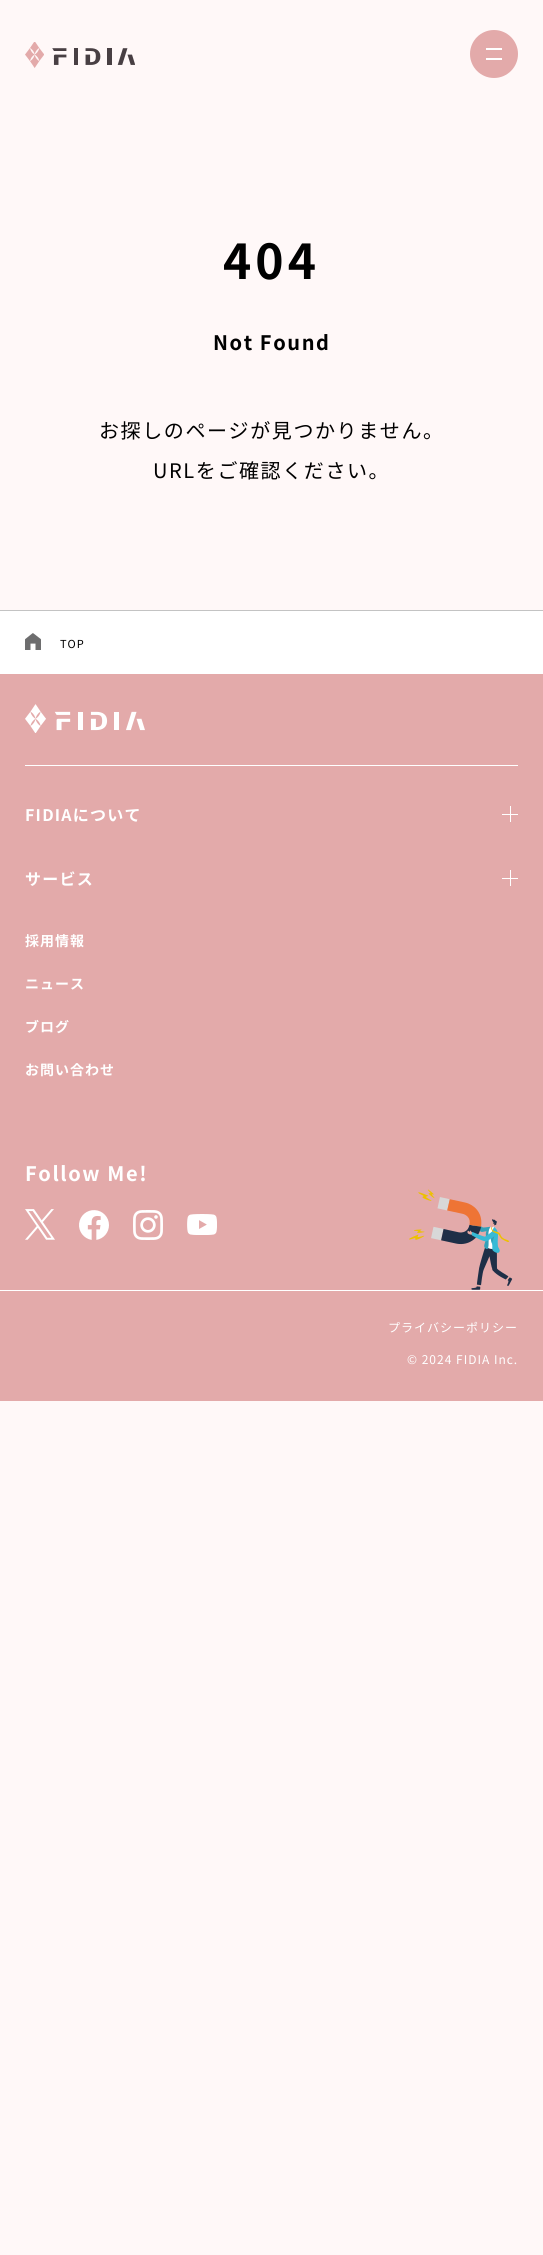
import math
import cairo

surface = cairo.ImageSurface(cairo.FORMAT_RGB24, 543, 2255)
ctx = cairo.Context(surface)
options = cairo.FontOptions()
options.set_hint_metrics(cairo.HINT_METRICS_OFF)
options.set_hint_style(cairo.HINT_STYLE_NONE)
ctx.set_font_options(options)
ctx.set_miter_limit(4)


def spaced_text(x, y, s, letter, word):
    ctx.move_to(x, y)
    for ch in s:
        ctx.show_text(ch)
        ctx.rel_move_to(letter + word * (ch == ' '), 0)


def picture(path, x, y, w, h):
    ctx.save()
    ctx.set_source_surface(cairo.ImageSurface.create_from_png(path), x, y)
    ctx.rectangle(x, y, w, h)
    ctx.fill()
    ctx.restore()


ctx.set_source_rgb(1, 0.969, 0.969)
ctx.paint()
picture("img1.png", 25, 42, 110, 26)
ctx.set_source_rgb(0.89, 0.667, 0.667)
ctx.arc(494, 54, 24, 0, 2 * math.pi)
ctx.fill()
ctx.set_source_rgb(1, 1, 1)
ctx.rectangle(486, 48, 16, 2)
ctx.fill()
ctx.rectangle(486, 58, 16, 2)
ctx.fill()
ctx.select_font_face("Noto Sans JP", cairo.FONT_SLANT_NORMAL, cairo.FONT_WEIGHT_BOLD)
ctx.set_font_size(48)
ctx.set_source_rgb(0, 0, 0)
spaced_text(223, 279, "404", 4, 0)
ctx.set_font_size(20)
spaced_text(213, 350, "Not Found", 1.6, 0)
ctx.select_font_face("Noto Sans JP")
spaced_text(99, 438, "お探しのページが見つかりません。", 1.6, 0)
spaced_text(153, 478, "URLをご確認ください。", 1.6, 0)
ctx.set_source_rgb(1, 1, 1)
ctx.rectangle(0, 611, 543, 63)
ctx.fill()
ctx.set_source_rgb(0.765, 0.765, 0.765)
ctx.rectangle(0, 610, 543, 1)
ctx.fill()
picture("img2.png", 25, 633, 16, 17)
ctx.set_font_size(11)
ctx.set_source_rgb(0, 0, 0)
spaced_text(60, 648, "TOP", 1, 0)
ctx.set_source_rgb(0.89, 0.667, 0.667)
ctx.rectangle(0, 674, 543, 727)
ctx.fill()
picture("img3.png", 25, 704, 120, 29)
ctx.set_source_rgb(1, 1, 1)
ctx.rectangle(25, 765, 493, 1)
ctx.fill()
ctx.select_font_face("Noto Sans JP", cairo.FONT_SLANT_NORMAL, cairo.FONT_WEIGHT_BOLD)
ctx.set_font_size(16)
spaced_text(25, 821, "FIDIAについて", 1.25, 0)
ctx.rectangle(502, 814, 16, 1)
ctx.fill()
ctx.rectangle(510, 806, 1, 16)
ctx.fill()
spaced_text(25, 885, "サービス", 1.25, 0)
ctx.rectangle(502, 878, 16, 1)
ctx.fill()
ctx.rectangle(510, 870, 1, 16)
ctx.fill()
ctx.set_font_size(14)
spaced_text(25, 946, "採用情報", 1, 0)
spaced_text(25, 989, "ニュース", 1, 0)
spaced_text(25, 1032, "ブログ", 1, 0)
spaced_text(25, 1075, "お問い合わせ", 1, 0)
ctx.rectangle(0, 1290, 543, 1)
ctx.fill()
ctx.set_font_size(20)
spaced_text(25, 1181, "Follow Me!", 1.6, 0)
picture("img4.png", 25, 1209, 30, 31)
picture("img5.png", 79, 1210, 30, 30)
picture("img6.png", 133, 1210, 30, 30)
picture("img7.png", 187, 1214, 30, 21)
picture("img8.png", 409, 1189, 104, 101)
ctx.select_font_face("Noto Sans JP")
ctx.set_font_size(12)
spaced_text(388, 1332, "プライバシーポリシー", 1, 0)
spaced_text(407, 1364, "© 2024 FIDIA Inc.", 1, 0)
surface.write_to_png("page.png")
